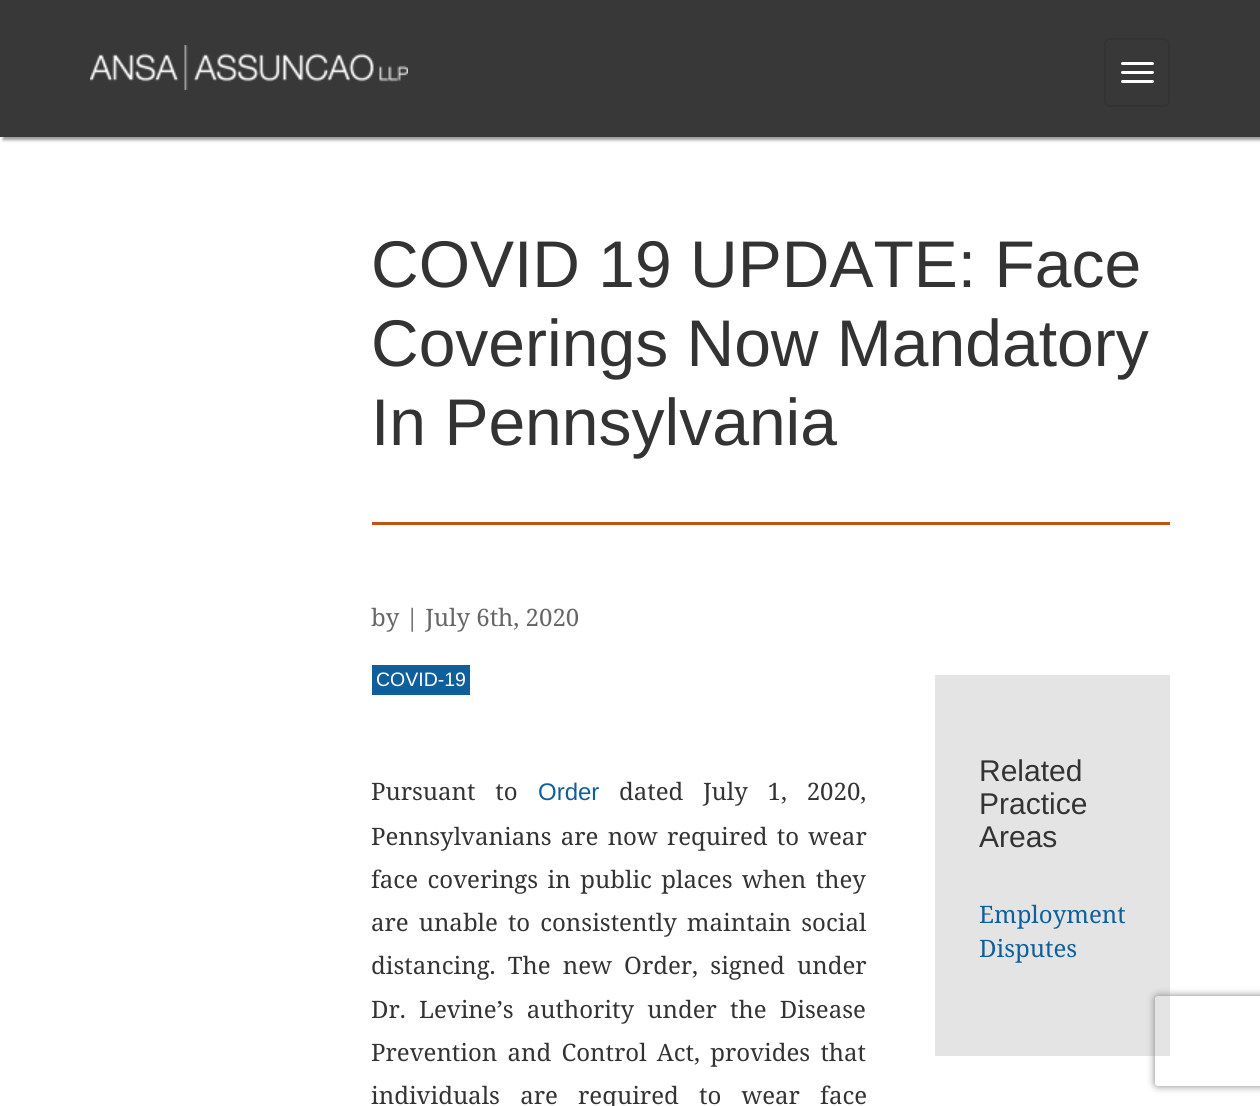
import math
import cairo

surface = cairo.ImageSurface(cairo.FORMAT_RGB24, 1260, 1106)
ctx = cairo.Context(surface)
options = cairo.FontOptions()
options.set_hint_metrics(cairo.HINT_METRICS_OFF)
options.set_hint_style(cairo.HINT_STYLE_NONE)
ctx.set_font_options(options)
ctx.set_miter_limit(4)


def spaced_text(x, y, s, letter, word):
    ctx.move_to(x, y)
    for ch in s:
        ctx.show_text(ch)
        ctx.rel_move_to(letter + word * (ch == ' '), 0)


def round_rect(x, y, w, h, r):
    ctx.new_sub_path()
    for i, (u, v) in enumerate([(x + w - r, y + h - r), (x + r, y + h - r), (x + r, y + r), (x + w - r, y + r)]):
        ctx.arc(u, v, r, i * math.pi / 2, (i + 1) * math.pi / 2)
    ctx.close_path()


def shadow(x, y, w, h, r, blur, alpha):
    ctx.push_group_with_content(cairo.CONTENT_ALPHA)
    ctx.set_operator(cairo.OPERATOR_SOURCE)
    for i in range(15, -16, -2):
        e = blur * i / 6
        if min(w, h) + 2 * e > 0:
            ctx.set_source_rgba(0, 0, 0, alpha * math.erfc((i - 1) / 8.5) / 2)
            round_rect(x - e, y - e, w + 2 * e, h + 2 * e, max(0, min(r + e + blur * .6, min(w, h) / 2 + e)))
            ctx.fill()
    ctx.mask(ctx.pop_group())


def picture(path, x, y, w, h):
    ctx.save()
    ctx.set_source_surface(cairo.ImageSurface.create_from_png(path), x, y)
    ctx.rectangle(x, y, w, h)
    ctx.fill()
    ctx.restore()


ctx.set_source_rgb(1, 1, 1)
ctx.paint()
ctx.set_source_rgb(0, 0, 0)
shadow(3, 3, 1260, 137, 0, 1.5, 0.4)
ctx.set_source_rgb(0.22, 0.22, 0.22)
ctx.rectangle(0, 0, 1260, 137)
ctx.fill()
picture("img1.png", 90, 45, 318, 45)
round_rect(1105, 39, 64, 67, 5)
ctx.set_source_rgb(0.2, 0.2, 0.2)
ctx.stroke()
ctx.set_source_rgb(1, 1, 1)
round_rect(1121, 62, 33, 3, 1.5)
ctx.fill()
round_rect(1121, 71, 33, 3, 1.5)
ctx.fill()
round_rect(1121, 80, 33, 3, 1.5)
ctx.fill()
ctx.set_source_rgb(0.757, 0.329, 0.063)
ctx.rectangle(372, 522, 798, 3)
ctx.fill()
ctx.select_font_face("Liberation Sans")
ctx.set_font_size(66)
ctx.set_source_rgb(0.2, 0.2, 0.2)
ctx.move_to(371, 287)
ctx.show_text("COVID 19 UPDATE: Face")
ctx.move_to(371, 366)
ctx.show_text("Coverings Now Mandatory")
ctx.move_to(371, 445)
ctx.show_text("In Pennsylvania")
ctx.select_font_face("Noto Serif")
ctx.set_font_size(24)
ctx.set_source_rgb(0.4, 0.4, 0.4)
ctx.move_to(371, 626)
ctx.show_text("by | July 6th, 2020")
ctx.set_source_rgb(0.059, 0.373, 0.612)
ctx.rectangle(372, 665, 98, 30)
ctx.fill()
ctx.select_font_face("Liberation Sans")
ctx.set_font_size(19.5)
ctx.set_source_rgb(1, 1, 1)
ctx.move_to(376, 686)
ctx.show_text("COVID-19")
ctx.select_font_face("Noto Serif")
ctx.set_font_size(24)
ctx.set_source_rgb(0.2, 0.2, 0.2)
spaced_text(371, 800, "Pursuant to", 0, 13.5)
ctx.select_font_face("Liberation Sans")
ctx.set_source_rgb(0.059, 0.373, 0.612)
ctx.move_to(538, 800)
ctx.show_text("Order")
ctx.select_font_face("Noto Serif")
ctx.set_source_rgb(0.2, 0.2, 0.2)
spaced_text(619, 800, "dated July 1, 2020,", 0, 13.5)
spaced_text(371, 845, "Pennsylvanians are now required to wear", 0, 3)
spaced_text(371, 888, "face coverings in public places when they", 0, 3.25)
spaced_text(371, 931, "are unable to consistently maintain social", 0, 3.75)
spaced_text(371, 974, "distancing. The new Order, signed under", 0, 6)
spaced_text(371, 1018, "Dr. Levine’s authority under the Disease", 0, 7)
spaced_text(371, 1061, "Prevention and Control Act, provides that", 0, 4)
spaced_text(371, 1104, "individuals are required to wear face", 0, 14)
ctx.set_source_rgb(0.894, 0.894, 0.894)
ctx.rectangle(935, 675, 235, 381)
ctx.fill()
ctx.select_font_face("Liberation Sans")
ctx.set_font_size(30)
ctx.set_source_rgb(0.2, 0.2, 0.2)
ctx.move_to(979, 781)
ctx.show_text("Related")
ctx.move_to(979, 814)
ctx.show_text("Practice")
ctx.move_to(979, 847)
ctx.show_text("Areas")
ctx.select_font_face("Noto Serif")
ctx.set_font_size(24)
ctx.set_source_rgb(0.059, 0.373, 0.612)
ctx.move_to(979, 923)
ctx.show_text("Employment")
ctx.move_to(979, 957)
ctx.show_text("Disputes")
ctx.save()
ctx.set_fill_rule(cairo.FILL_RULE_EVEN_ODD)
ctx.new_path()
ctx.move_to(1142, 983)
ctx.line_to(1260, 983)
ctx.line_to(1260, 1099)
ctx.line_to(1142, 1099)
ctx.close_path()
ctx.move_to(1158, 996)
ctx.line_to(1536, 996)
ctx.curve_to(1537.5, 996, 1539, 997.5, 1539, 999)
ctx.line_to(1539, 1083)
ctx.curve_to(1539, 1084.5, 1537.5, 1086, 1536, 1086)
ctx.line_to(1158, 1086)
ctx.curve_to(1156.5, 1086, 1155, 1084.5, 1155, 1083)
ctx.line_to(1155, 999)
ctx.curve_to(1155, 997.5, 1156.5, 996, 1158, 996)
ctx.close_path()
ctx.clip()
ctx.set_source_rgb(0.502, 0.502, 0.502)
shadow(1155, 996, 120, 90, 3, 4, 1)
ctx.restore()
surface.write_to_png("page.png")
